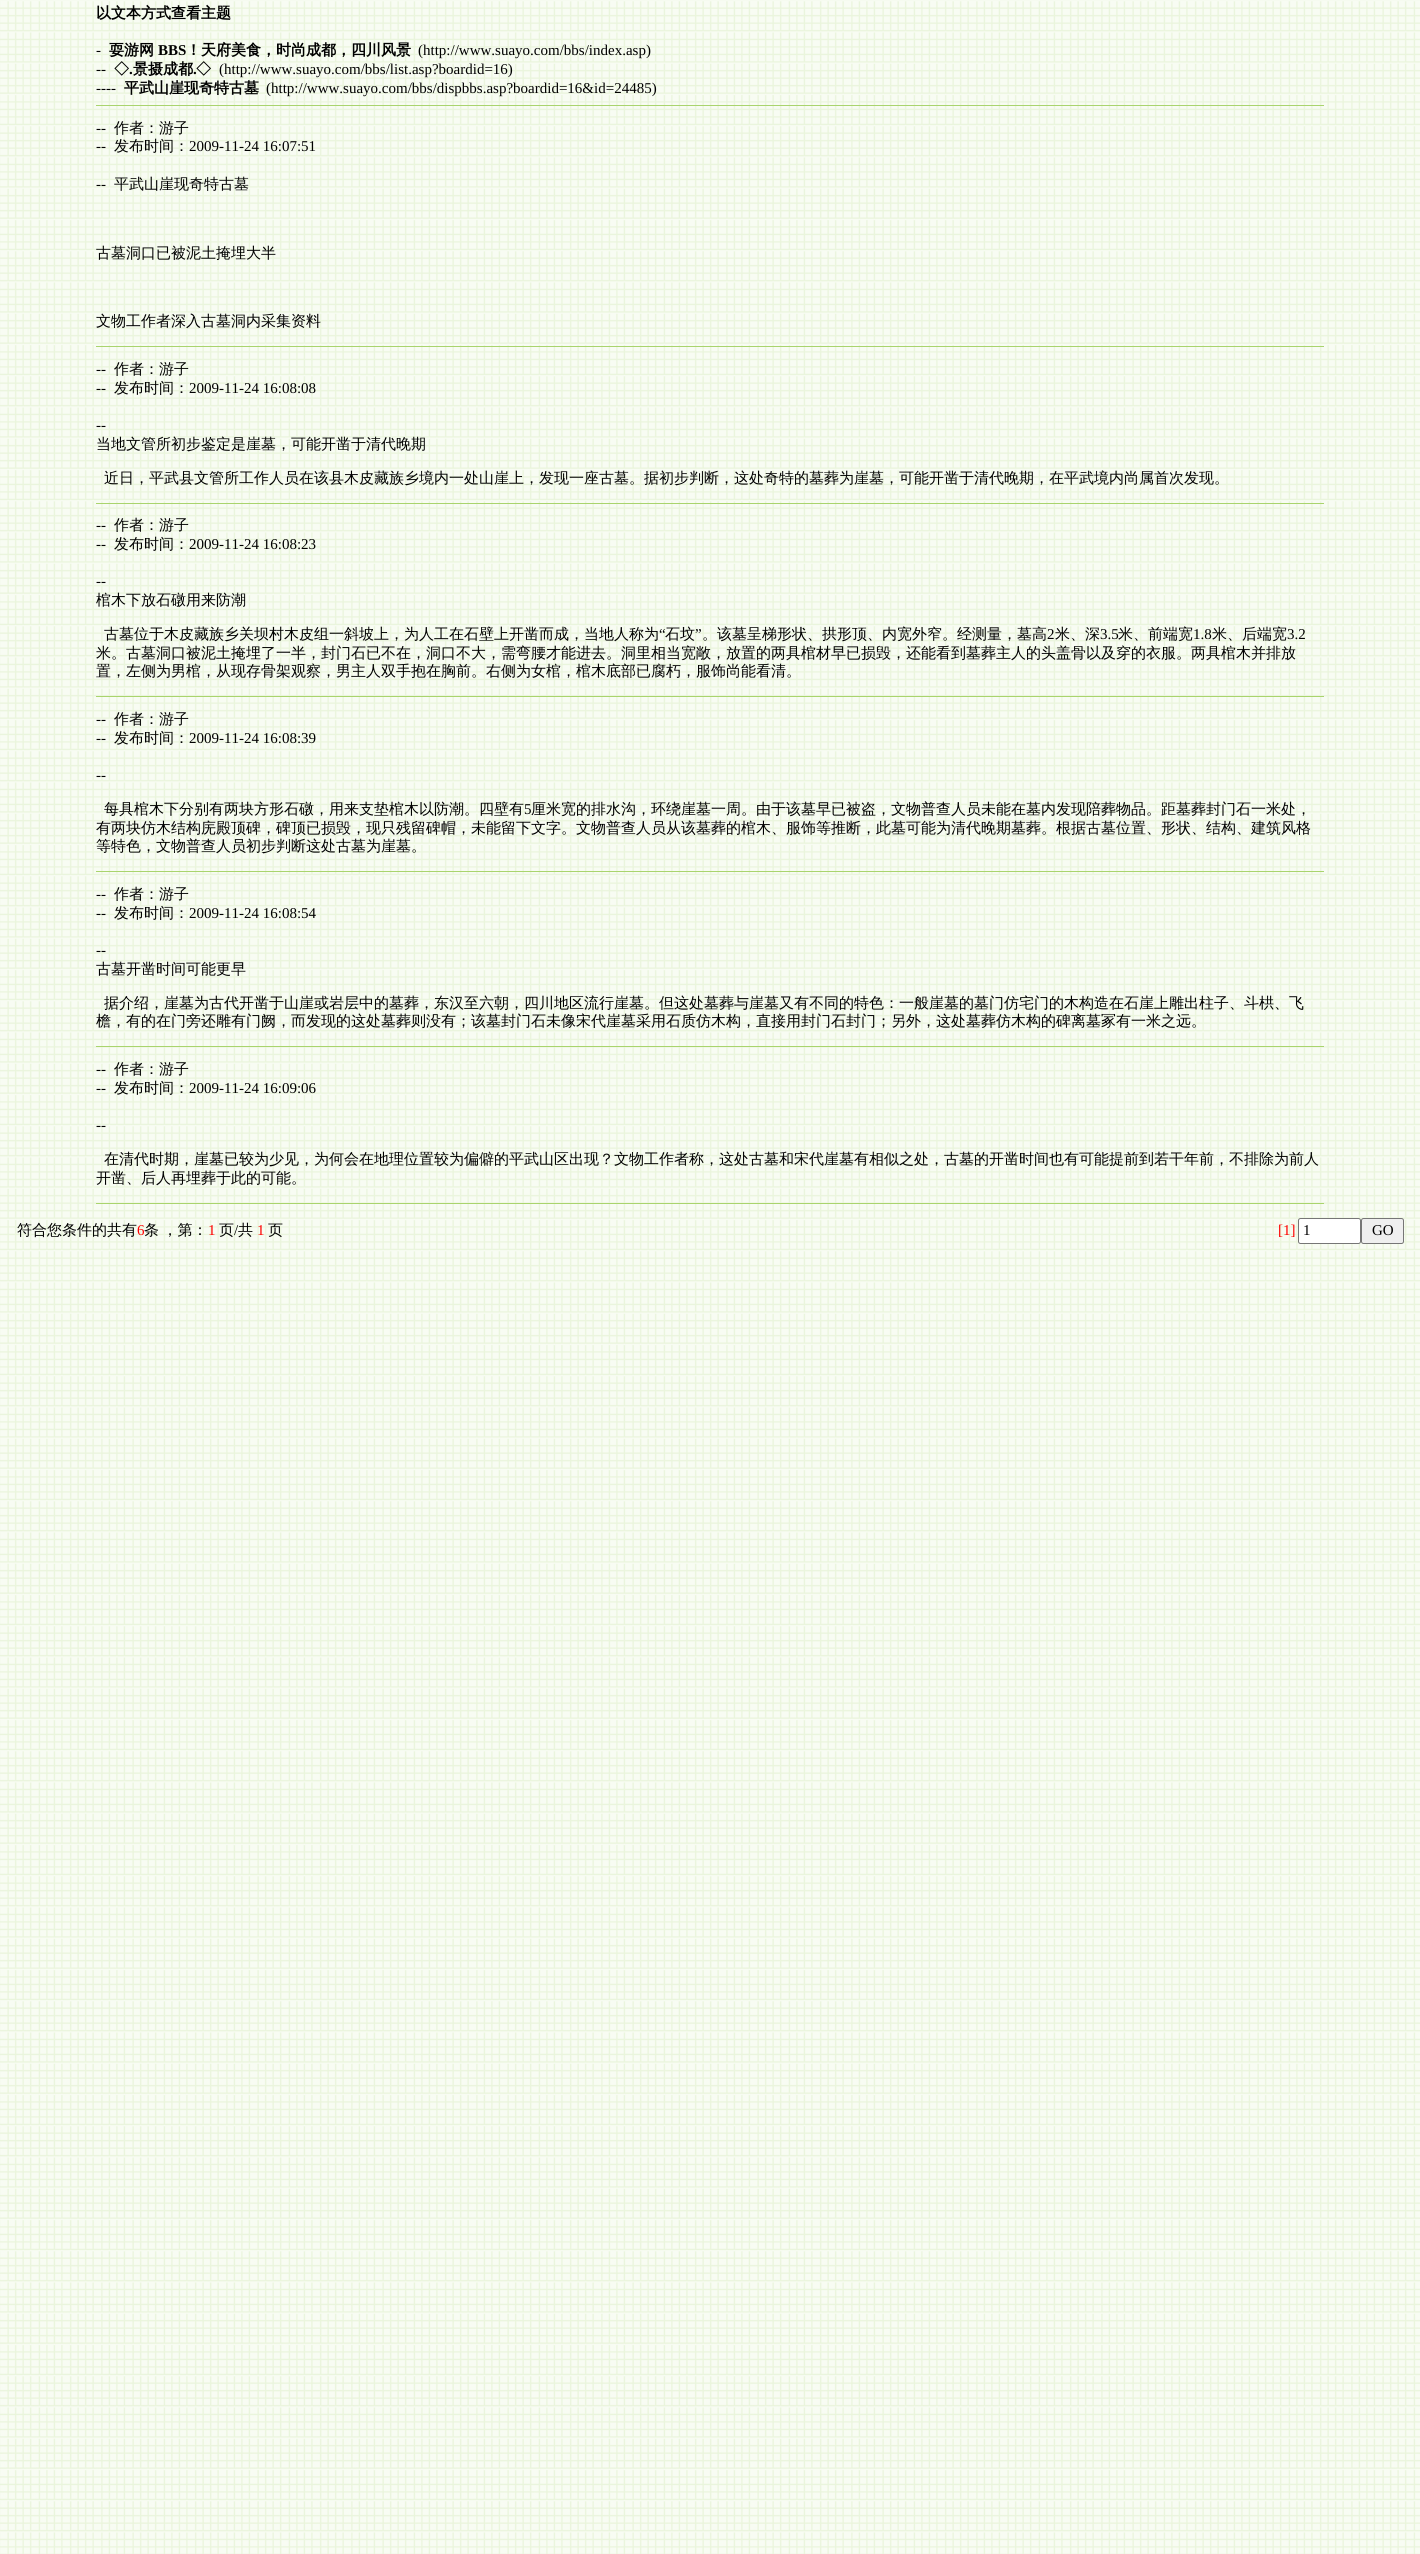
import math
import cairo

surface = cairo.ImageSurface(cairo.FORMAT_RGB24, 1420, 2554)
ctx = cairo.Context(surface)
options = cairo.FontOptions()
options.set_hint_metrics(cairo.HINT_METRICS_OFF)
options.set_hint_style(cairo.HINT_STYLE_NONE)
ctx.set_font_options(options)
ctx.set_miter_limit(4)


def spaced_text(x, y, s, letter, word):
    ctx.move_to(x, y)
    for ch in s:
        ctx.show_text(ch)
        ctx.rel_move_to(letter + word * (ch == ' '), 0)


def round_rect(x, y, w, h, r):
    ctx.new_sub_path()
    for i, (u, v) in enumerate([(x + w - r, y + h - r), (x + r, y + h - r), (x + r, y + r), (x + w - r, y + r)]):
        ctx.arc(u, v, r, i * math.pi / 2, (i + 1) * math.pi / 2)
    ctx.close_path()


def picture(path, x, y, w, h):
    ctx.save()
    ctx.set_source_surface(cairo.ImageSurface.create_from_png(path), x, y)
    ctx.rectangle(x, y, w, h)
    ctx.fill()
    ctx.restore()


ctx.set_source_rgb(1, 1, 1)
ctx.paint()
picture("img1.png", 0, 0, 1420, 2554)
ctx.select_font_face("WenQuanYi Zen Hei", cairo.FONT_SLANT_NORMAL, cairo.FONT_WEIGHT_BOLD)
ctx.set_font_size(15)
ctx.set_source_rgb(0, 0, 0)
ctx.move_to(96, 18)
ctx.show_text("以文本方式查看主题")
ctx.select_font_face("Liberation Serif")
ctx.move_to(96, 55)
ctx.show_text("-")
ctx.select_font_face("WenQuanYi Zen Hei", cairo.FONT_SLANT_NORMAL, cairo.FONT_WEIGHT_BOLD)
ctx.move_to(109, 55)
ctx.show_text("耍游网")
ctx.select_font_face("Liberation Serif", cairo.FONT_SLANT_NORMAL, cairo.FONT_WEIGHT_BOLD)
ctx.move_to(158, 55)
ctx.show_text("BBS")
ctx.select_font_face("WenQuanYi Zen Hei", cairo.FONT_SLANT_NORMAL, cairo.FONT_WEIGHT_BOLD)
ctx.move_to(186, 55)
ctx.show_text("！天府美食，时尚成都，四川风景")
ctx.select_font_face("Liberation Serif")
ctx.move_to(418, 55)
ctx.show_text("(http://www.suayo.com/bbs/index.asp)")
ctx.move_to(96, 74)
ctx.show_text("--")
ctx.select_font_face("WenQuanYi Zen Hei", cairo.FONT_SLANT_NORMAL, cairo.FONT_WEIGHT_BOLD)
ctx.move_to(114, 74)
ctx.show_text("◇")
ctx.move_to(133, 74)
ctx.show_text("景摄成都")
ctx.move_to(196, 74)
ctx.show_text("◇")
ctx.select_font_face("Liberation Serif")
ctx.move_to(219, 74)
ctx.show_text("(http://www.suayo.com/bbs/list.asp?boardid=16)")
ctx.select_font_face("Liberation Serif", cairo.FONT_SLANT_NORMAL, cairo.FONT_WEIGHT_BOLD)
ctx.move_to(129, 74)
ctx.show_text(".")
ctx.move_to(193, 74)
ctx.show_text(".")
ctx.select_font_face("Liberation Serif")
ctx.move_to(96, 93)
ctx.show_text("----")
ctx.select_font_face("WenQuanYi Zen Hei", cairo.FONT_SLANT_NORMAL, cairo.FONT_WEIGHT_BOLD)
ctx.move_to(124, 93)
ctx.show_text("平武山崖现奇特古墓")
ctx.select_font_face("Liberation Serif")
ctx.move_to(266, 93)
ctx.show_text("(http://www.suayo.com/bbs/dispbbs.asp?boardid=16&id=24485)")
ctx.set_source_rgb(0.663, 0.831, 0.427)
ctx.rectangle(96, 105, 1228, 1)
ctx.fill()
ctx.set_source_rgb(0, 0, 0)
ctx.move_to(96, 133)
ctx.show_text("--")
ctx.select_font_face("WenQuanYi Zen Hei Medium")
ctx.move_to(114, 133)
ctx.show_text("作者：游子")
ctx.select_font_face("Liberation Serif")
ctx.move_to(96, 151)
ctx.show_text("--")
ctx.select_font_face("WenQuanYi Zen Hei Medium")
ctx.move_to(114, 151)
ctx.show_text("发布时间：")
ctx.select_font_face("Liberation Serif")
ctx.move_to(189, 151)
ctx.show_text("2009-11-24 16:07:51")
ctx.move_to(96, 189)
ctx.show_text("--")
ctx.select_font_face("WenQuanYi Zen Hei Medium")
ctx.move_to(114, 189)
ctx.show_text("平武山崖现奇特古墓")
ctx.move_to(96, 258)
ctx.show_text("古墓洞口已被泥土掩埋大半")
ctx.move_to(96, 326)
ctx.show_text("文物工作者深入古墓洞内采集资料")
ctx.set_source_rgb(0.663, 0.831, 0.427)
ctx.rectangle(96, 346, 1228, 1)
ctx.fill()
ctx.select_font_face("Liberation Serif")
ctx.set_source_rgb(0, 0, 0)
ctx.move_to(96, 374)
ctx.show_text("--")
ctx.select_font_face("WenQuanYi Zen Hei Medium")
ctx.move_to(114, 374)
ctx.show_text("作者：游子")
ctx.select_font_face("Liberation Serif")
ctx.move_to(96, 393)
ctx.show_text("--")
ctx.select_font_face("WenQuanYi Zen Hei Medium")
ctx.move_to(114, 393)
ctx.show_text("发布时间：")
ctx.select_font_face("Liberation Serif")
ctx.move_to(189, 393)
ctx.show_text("2009-11-24 16:08:08")
ctx.move_to(96, 430)
ctx.show_text("--")
ctx.select_font_face("WenQuanYi Zen Hei Medium")
ctx.move_to(96, 449)
ctx.show_text("当地文管所初步鉴定是崖墓，可能开凿于清代晚期")
ctx.move_to(104, 483)
ctx.show_text("近日，平武县文管所工作人员在该县木皮藏族乡境内一处山崖上，发现一座古墓。据初步判断，这处奇特的墓葬为崖墓，可能开凿于清代晚期，在平武境内尚属首次发现。")
ctx.set_source_rgb(0.663, 0.831, 0.427)
ctx.rectangle(96, 503, 1228, 1)
ctx.fill()
ctx.select_font_face("Liberation Serif")
ctx.set_source_rgb(0, 0, 0)
ctx.move_to(96, 530)
ctx.show_text("--")
ctx.select_font_face("WenQuanYi Zen Hei Medium")
ctx.move_to(114, 530)
ctx.show_text("作者：游子")
ctx.select_font_face("Liberation Serif")
ctx.move_to(96, 549)
ctx.show_text("--")
ctx.select_font_face("WenQuanYi Zen Hei Medium")
ctx.move_to(114, 549)
ctx.show_text("发布时间：")
ctx.select_font_face("Liberation Serif")
ctx.move_to(189, 549)
ctx.show_text("2009-11-24 16:08:23")
ctx.move_to(96, 586)
ctx.show_text("--")
ctx.select_font_face("WenQuanYi Zen Hei Medium")
ctx.move_to(96, 605)
ctx.show_text("棺木下放石礅用来防潮")
ctx.move_to(104, 639)
ctx.show_text("古墓位于木皮藏族乡关坝村木皮组一斜坡上，为人工在石壁上开凿而成，当地人称为")
ctx.select_font_face("Liberation Serif")
ctx.move_to(659, 639)
ctx.show_text("“")
ctx.select_font_face("WenQuanYi Zen Hei Medium")
ctx.move_to(665, 639)
ctx.show_text("石坟")
ctx.select_font_face("Liberation Serif")
ctx.move_to(695, 639)
ctx.show_text("”")
ctx.select_font_face("WenQuanYi Zen Hei Medium")
ctx.move_to(702, 639)
ctx.show_text("。该墓呈梯形状、拱形顶、内宽外窄。经测量，墓高")
ctx.select_font_face("Liberation Serif")
ctx.move_to(1047, 639)
ctx.show_text("2")
ctx.select_font_face("WenQuanYi Zen Hei Medium")
ctx.move_to(1055, 639)
ctx.show_text("米、深")
ctx.select_font_face("Liberation Serif")
ctx.move_to(1100, 639)
ctx.show_text("3.5")
ctx.select_font_face("WenQuanYi Zen Hei Medium")
ctx.move_to(1118, 639)
ctx.show_text("米、前端宽")
ctx.select_font_face("Liberation Serif")
ctx.move_to(1193, 639)
ctx.show_text("1.8")
ctx.select_font_face("WenQuanYi Zen Hei Medium")
ctx.move_to(1212, 639)
ctx.show_text("米、后端宽")
ctx.select_font_face("Liberation Serif")
ctx.move_to(1287, 639)
ctx.show_text("3.2")
ctx.select_font_face("WenQuanYi Zen Hei Medium")
ctx.move_to(96, 658)
ctx.show_text("米。古墓洞口被泥土掩埋了一半，封门石已不在，洞口不大，需弯腰才能进去。洞里相当宽敞，放置的两具棺材早已损毁，还能看到墓葬主人的头盖骨以及穿的衣服。两具棺木并排放")
ctx.move_to(96, 676)
ctx.show_text("置，左侧为男棺，从现存骨架观察，男主人双手抱在胸前。右侧为女棺，棺木底部已腐朽，服饰尚能看清。")
ctx.set_source_rgb(0.663, 0.831, 0.427)
ctx.rectangle(96, 696, 1228, 1)
ctx.fill()
ctx.select_font_face("Liberation Serif")
ctx.set_source_rgb(0, 0, 0)
ctx.move_to(96, 724)
ctx.show_text("--")
ctx.select_font_face("WenQuanYi Zen Hei Medium")
ctx.move_to(114, 724)
ctx.show_text("作者：游子")
ctx.select_font_face("Liberation Serif")
ctx.move_to(96, 743)
ctx.show_text("--")
ctx.select_font_face("WenQuanYi Zen Hei Medium")
ctx.move_to(114, 743)
ctx.show_text("发布时间：")
ctx.select_font_face("Liberation Serif")
ctx.move_to(189, 743)
ctx.show_text("2009-11-24 16:08:39")
ctx.move_to(96, 780)
ctx.show_text("--")
ctx.select_font_face("WenQuanYi Zen Hei Medium")
ctx.move_to(104, 814)
ctx.show_text("每具棺木下分别有两块方形石礅，用来支垫棺木以防潮。四壁有")
ctx.select_font_face("Liberation Serif")
ctx.move_to(524, 814)
ctx.show_text("5")
ctx.select_font_face("WenQuanYi Zen Hei Medium")
ctx.move_to(531, 814)
ctx.show_text("厘米宽的排水沟，环绕崖墓一周。由于该墓早已被盗，文物普查人员未能在墓内发现陪葬物品。距墓葬封门石一米处，")
ctx.move_to(96, 833)
ctx.show_text("有两块仿木结构庑殿顶碑，碑顶已损毁，现只残留碑帽，未能留下文字。文物普查人员从该墓葬的棺木、服饰等推断，此墓可能为清代晚期墓葬。根据古墓位置、形状、结构、建筑风格")
ctx.move_to(96, 851)
ctx.show_text("等特色，文物普查人员初步判断这处古墓为崖墓。")
ctx.set_source_rgb(0.663, 0.831, 0.427)
ctx.rectangle(96, 871, 1228, 1)
ctx.fill()
ctx.select_font_face("Liberation Serif")
ctx.set_source_rgb(0, 0, 0)
ctx.move_to(96, 899)
ctx.show_text("--")
ctx.select_font_face("WenQuanYi Zen Hei Medium")
ctx.move_to(114, 899)
ctx.show_text("作者：游子")
ctx.select_font_face("Liberation Serif")
ctx.move_to(96, 918)
ctx.show_text("--")
ctx.select_font_face("WenQuanYi Zen Hei Medium")
ctx.move_to(114, 918)
ctx.show_text("发布时间：")
ctx.select_font_face("Liberation Serif")
ctx.move_to(189, 918)
ctx.show_text("2009-11-24 16:08:54")
ctx.move_to(96, 955)
ctx.show_text("--")
ctx.select_font_face("WenQuanYi Zen Hei Medium")
ctx.move_to(96, 974)
ctx.show_text("古墓开凿时间可能更早")
ctx.move_to(104, 1008)
ctx.show_text("据介绍，崖墓为古代开凿于山崖或岩层中的墓葬，东汉至六朝，四川地区流行崖墓。但这处墓葬与崖墓又有不同的特色：一般崖墓的墓门仿宅门的木构造在石崖上雕出柱子、斗栱、飞")
ctx.move_to(96, 1026)
ctx.show_text("檐，有的在门旁还雕有门阙，而发现的这处墓葬则没有；该墓封门石未像宋代崖墓采用石质仿木构，直接用封门石封门；另外，这处墓葬仿木构的碑离墓冢有一米之远。")
ctx.set_source_rgb(0.663, 0.831, 0.427)
ctx.rectangle(96, 1046, 1228, 1)
ctx.fill()
ctx.select_font_face("Liberation Serif")
ctx.set_source_rgb(0, 0, 0)
ctx.move_to(96, 1074)
ctx.show_text("--")
ctx.select_font_face("WenQuanYi Zen Hei Medium")
ctx.move_to(114, 1074)
ctx.show_text("作者：游子")
ctx.select_font_face("Liberation Serif")
ctx.move_to(96, 1093)
ctx.show_text("--")
ctx.select_font_face("WenQuanYi Zen Hei Medium")
ctx.move_to(114, 1093)
ctx.show_text("发布时间：")
ctx.select_font_face("Liberation Serif")
ctx.move_to(189, 1093)
ctx.show_text("2009-11-24 16:09:06")
ctx.move_to(96, 1130)
ctx.show_text("--")
ctx.select_font_face("WenQuanYi Zen Hei Medium")
ctx.move_to(104, 1164)
ctx.show_text("在清代时期，崖墓已较为少见，为何会在地理位置较为偏僻的平武山区出现？文物工作者称，这处古墓和宋代崖墓有相似之处，古墓的开凿时间也有可能提前到若干年前，不排除为前人")
ctx.move_to(96, 1183)
ctx.show_text("开凿、后人再埋葬于此的可能。")
ctx.set_source_rgb(0.663, 0.831, 0.427)
ctx.rectangle(96, 1203, 1228, 1)
ctx.fill()
ctx.set_source_rgb(0, 0, 0)
ctx.move_to(17, 1235)
ctx.show_text("符合您条件的共有")
ctx.select_font_face("Liberation Serif")
ctx.set_source_rgb(1, 0, 0)
ctx.move_to(137, 1235)
ctx.show_text("6")
ctx.select_font_face("WenQuanYi Zen Hei Medium")
ctx.set_source_rgb(0, 0, 0)
spaced_text(144, 1235, "条 ，第：", 0, -1)
ctx.select_font_face("Liberation Serif")
ctx.set_source_rgb(1, 0, 0)
ctx.move_to(208, 1235)
ctx.show_text("1")
ctx.select_font_face("WenQuanYi Zen Hei Medium")
ctx.set_source_rgb(0, 0, 0)
ctx.move_to(219, 1235)
ctx.show_text("页")
ctx.select_font_face("Liberation Serif")
ctx.move_to(234, 1235)
ctx.show_text("/")
ctx.select_font_face("WenQuanYi Zen Hei Medium")
ctx.move_to(238, 1235)
ctx.show_text("共")
ctx.select_font_face("Liberation Serif")
ctx.set_source_rgb(1, 0, 0)
ctx.move_to(257, 1235)
ctx.show_text("1")
ctx.select_font_face("WenQuanYi Zen Hei Medium")
ctx.set_source_rgb(0, 0, 0)
ctx.move_to(268, 1235)
ctx.show_text("页")
ctx.select_font_face("Liberation Serif")
ctx.set_source_rgb(1, 0, 0)
ctx.move_to(1278, 1235)
ctx.show_text("[1]")
ctx.set_source_rgb(1, 1, 1)
round_rect(1298.5, 1218.5, 62, 25, 2)
ctx.fill_preserve()
ctx.set_source_rgb(0.463, 0.463, 0.463)
ctx.set_line_width(1)
ctx.stroke()
ctx.set_source_rgb(0, 0, 0)
ctx.move_to(1303, 1235)
ctx.show_text("1")
ctx.set_source_rgb(0.937, 0.937, 0.937)
round_rect(1361.5, 1218.5, 42, 25, 2)
ctx.fill_preserve()
ctx.set_source_rgb(0.463, 0.463, 0.463)
ctx.stroke()
ctx.set_source_rgb(0, 0, 0)
ctx.move_to(1372, 1235)
ctx.show_text("GO")
surface.write_to_png("page.png")
